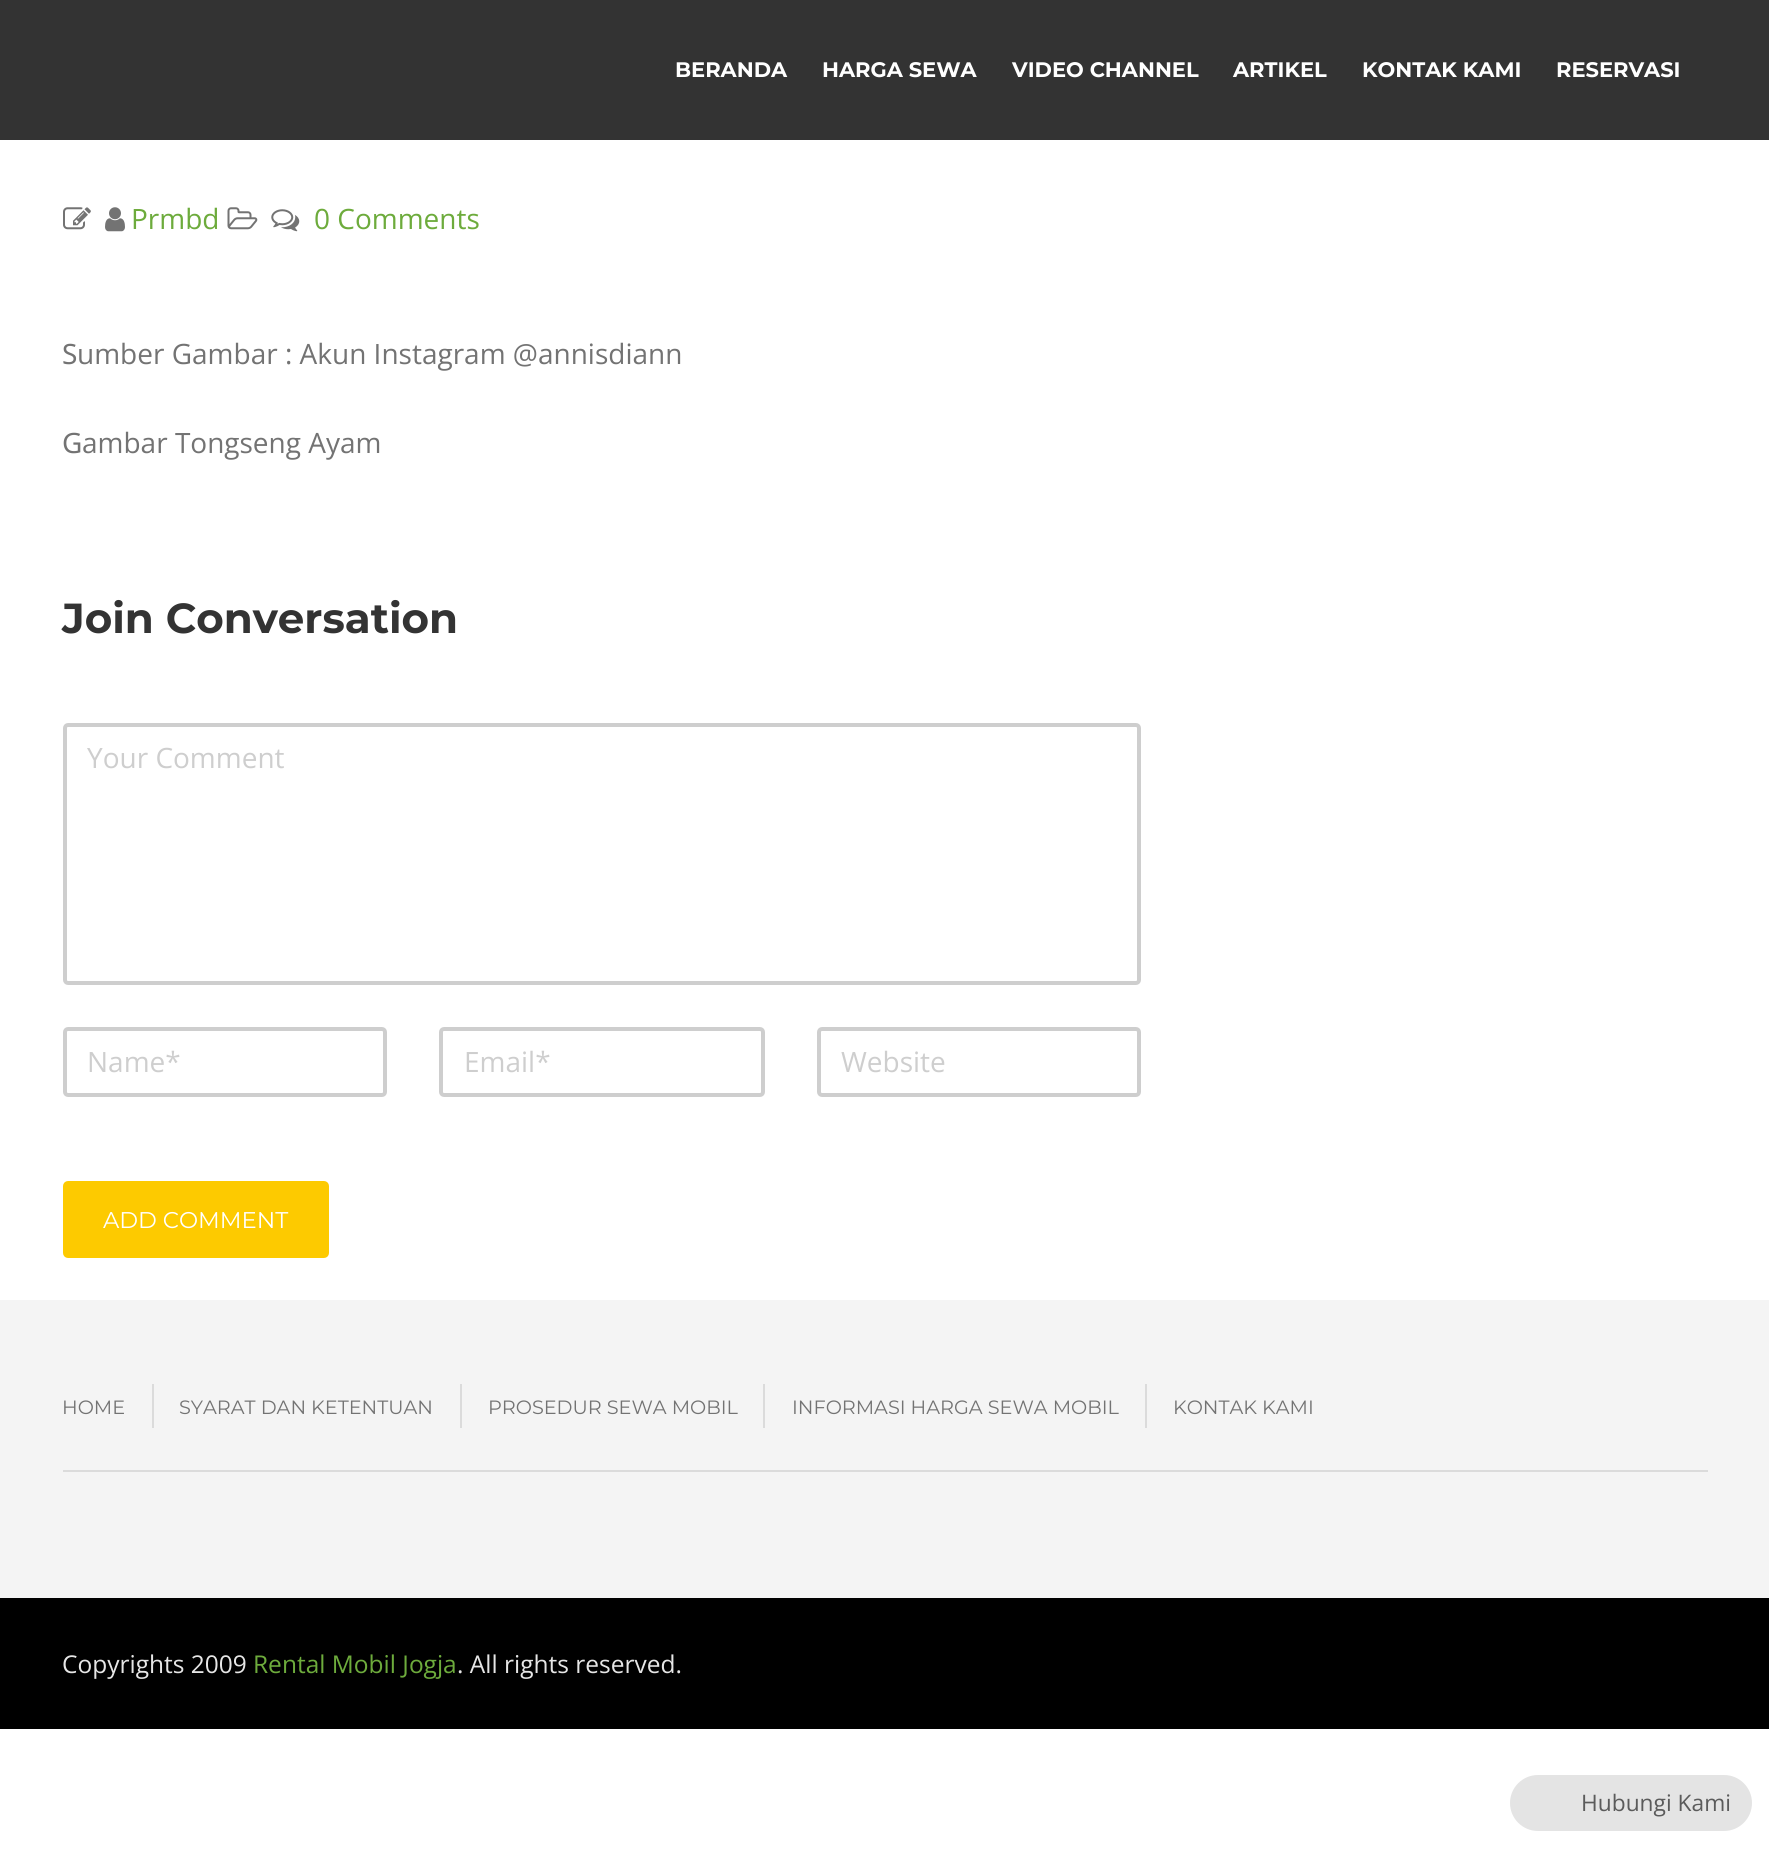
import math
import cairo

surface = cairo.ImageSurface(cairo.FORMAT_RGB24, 1769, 1865)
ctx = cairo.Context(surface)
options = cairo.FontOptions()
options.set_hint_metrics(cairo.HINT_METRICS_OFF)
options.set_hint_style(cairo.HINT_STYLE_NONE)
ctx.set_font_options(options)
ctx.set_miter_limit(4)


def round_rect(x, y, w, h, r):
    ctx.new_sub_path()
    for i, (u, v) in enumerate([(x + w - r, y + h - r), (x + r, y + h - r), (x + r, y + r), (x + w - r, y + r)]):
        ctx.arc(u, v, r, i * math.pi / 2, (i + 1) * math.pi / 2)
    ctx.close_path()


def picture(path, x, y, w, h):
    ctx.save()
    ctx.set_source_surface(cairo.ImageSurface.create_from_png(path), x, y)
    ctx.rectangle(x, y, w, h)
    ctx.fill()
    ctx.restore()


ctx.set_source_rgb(1, 1, 1)
ctx.paint()
ctx.set_source_rgba(0, 0, 0, 0.8)
ctx.rectangle(0, 0, 1769, 140)
ctx.fill()
ctx.select_font_face("Montserrat", cairo.FONT_SLANT_NORMAL, cairo.FONT_WEIGHT_BOLD)
ctx.set_font_size(21)
ctx.set_source_rgb(1, 1, 1)
ctx.move_to(675, 77)
ctx.show_text("BERANDA")
ctx.move_to(822, 77)
ctx.show_text("HARGA SEWA")
ctx.move_to(1012, 77)
ctx.show_text("VIDEO CHANNEL")
ctx.move_to(1233, 77)
ctx.show_text("ARTIKEL")
ctx.move_to(1362, 77)
ctx.show_text("KONTAK KAMI")
ctx.move_to(1556, 77)
ctx.show_text("RESERVASI")
picture("img1.png", 63, 207, 28, 23)
picture("img2.png", 105, 207, 20, 25)
ctx.select_font_face("Open Sans")
ctx.set_font_size(28)
ctx.set_source_rgb(0.427, 0.671, 0.235)
ctx.move_to(131, 229)
ctx.show_text("Prmbd")
picture("img3.png", 227, 207, 31, 23)
picture("img4.png", 271, 209, 29, 23)
ctx.move_to(314, 229)
ctx.show_text("0 Comments")
ctx.select_font_face("Noto Sans")
ctx.set_source_rgb(0.451, 0.451, 0.451)
ctx.move_to(62, 364)
ctx.show_text("S")
ctx.select_font_face("Open Sans")
ctx.move_to(77, 364)
ctx.show_text("umber Gambar : Akun Instagram @annisdiann")
ctx.select_font_face("Noto Sans")
ctx.move_to(62, 453)
ctx.show_text("G")
ctx.select_font_face("Open Sans")
ctx.move_to(82, 453)
ctx.show_text("ambar Tongseng Ayam")
ctx.select_font_face("Montserrat", cairo.FONT_SLANT_NORMAL, cairo.FONT_WEIGHT_BOLD)
ctx.set_font_size(42)
ctx.set_source_rgb(0.2, 0.2, 0.2)
ctx.move_to(62, 633)
ctx.show_text("Join Conversation")
round_rect(65, 725, 1074, 258, 3)
ctx.set_source_rgb(0.808, 0.808, 0.808)
ctx.set_line_width(4)
ctx.stroke()
ctx.select_font_face("Open Sans")
ctx.set_font_size(28)
ctx.move_to(87, 768)
ctx.show_text("Your Comment")
round_rect(65, 1029, 320, 66, 3)
ctx.stroke()
ctx.move_to(87, 1072)
ctx.show_text("Name*")
round_rect(441, 1029, 322, 66, 3)
ctx.stroke()
ctx.move_to(464, 1072)
ctx.show_text("Email*")
round_rect(819, 1029, 320, 66, 3)
ctx.stroke()
ctx.move_to(841, 1072)
ctx.show_text("Website")
ctx.set_source_rgb(0.992, 0.792, 0)
round_rect(65, 1183, 262, 73, 3)
ctx.fill_preserve()
ctx.stroke()
ctx.select_font_face("Montserrat")
ctx.set_font_size(22.75)
ctx.set_source_rgb(1, 1, 1)
ctx.move_to(103, 1228)
ctx.show_text("ADD COMMENT")
ctx.set_source_rgb(0.957, 0.957, 0.957)
ctx.rectangle(0, 1300, 1769, 298)
ctx.fill()
ctx.set_source_rgb(0.859, 0.859, 0.859)
ctx.rectangle(152, 1384, 2, 44)
ctx.fill()
ctx.set_font_size(19.25)
ctx.set_source_rgb(0.451, 0.451, 0.451)
ctx.move_to(62, 1414)
ctx.show_text("HOME")
ctx.set_source_rgb(0.859, 0.859, 0.859)
ctx.rectangle(460, 1384, 2, 44)
ctx.fill()
ctx.set_source_rgb(0.451, 0.451, 0.451)
ctx.move_to(179, 1414)
ctx.show_text("SYARAT DAN KETENTUAN")
ctx.set_source_rgb(0.859, 0.859, 0.859)
ctx.rectangle(763, 1384, 2, 44)
ctx.fill()
ctx.set_source_rgb(0.451, 0.451, 0.451)
ctx.move_to(488, 1414)
ctx.show_text("PROSEDUR SEWA MOBIL")
ctx.set_source_rgb(0.859, 0.859, 0.859)
ctx.rectangle(1145, 1384, 2, 44)
ctx.fill()
ctx.set_source_rgb(0.451, 0.451, 0.451)
ctx.move_to(792, 1414)
ctx.show_text("INFORMASI HARGA SEWA MOBIL")
ctx.move_to(1173, 1414)
ctx.show_text("KONTAK KAMI")
ctx.set_source_rgb(0.859, 0.859, 0.859)
ctx.rectangle(63, 1470, 1645, 2)
ctx.fill()
ctx.set_source_rgb(0, 0, 0)
ctx.rectangle(0, 1598, 1769, 131)
ctx.fill()
ctx.select_font_face("Open Sans")
ctx.set_font_size(24.5)
ctx.set_source_rgb(0.902, 0.902, 0.902)
ctx.move_to(62, 1673)
ctx.show_text("Copyrights 2009")
ctx.set_source_rgb(0.427, 0.671, 0.235)
ctx.move_to(253, 1673)
ctx.show_text("Rental Mobil Jogja")
ctx.set_source_rgb(0.902, 0.902, 0.902)
ctx.move_to(457, 1673)
ctx.show_text(". All rights reserved.")
ctx.set_source_rgb(0.894, 0.894, 0.894)
round_rect(1510, 1775, 242, 56, 28)
ctx.fill()
ctx.set_font_size(22.75)
ctx.set_source_rgb(0.357, 0.357, 0.357)
ctx.move_to(1581, 1811)
ctx.show_text("Hubungi Kami")
surface.write_to_png("page.png")
